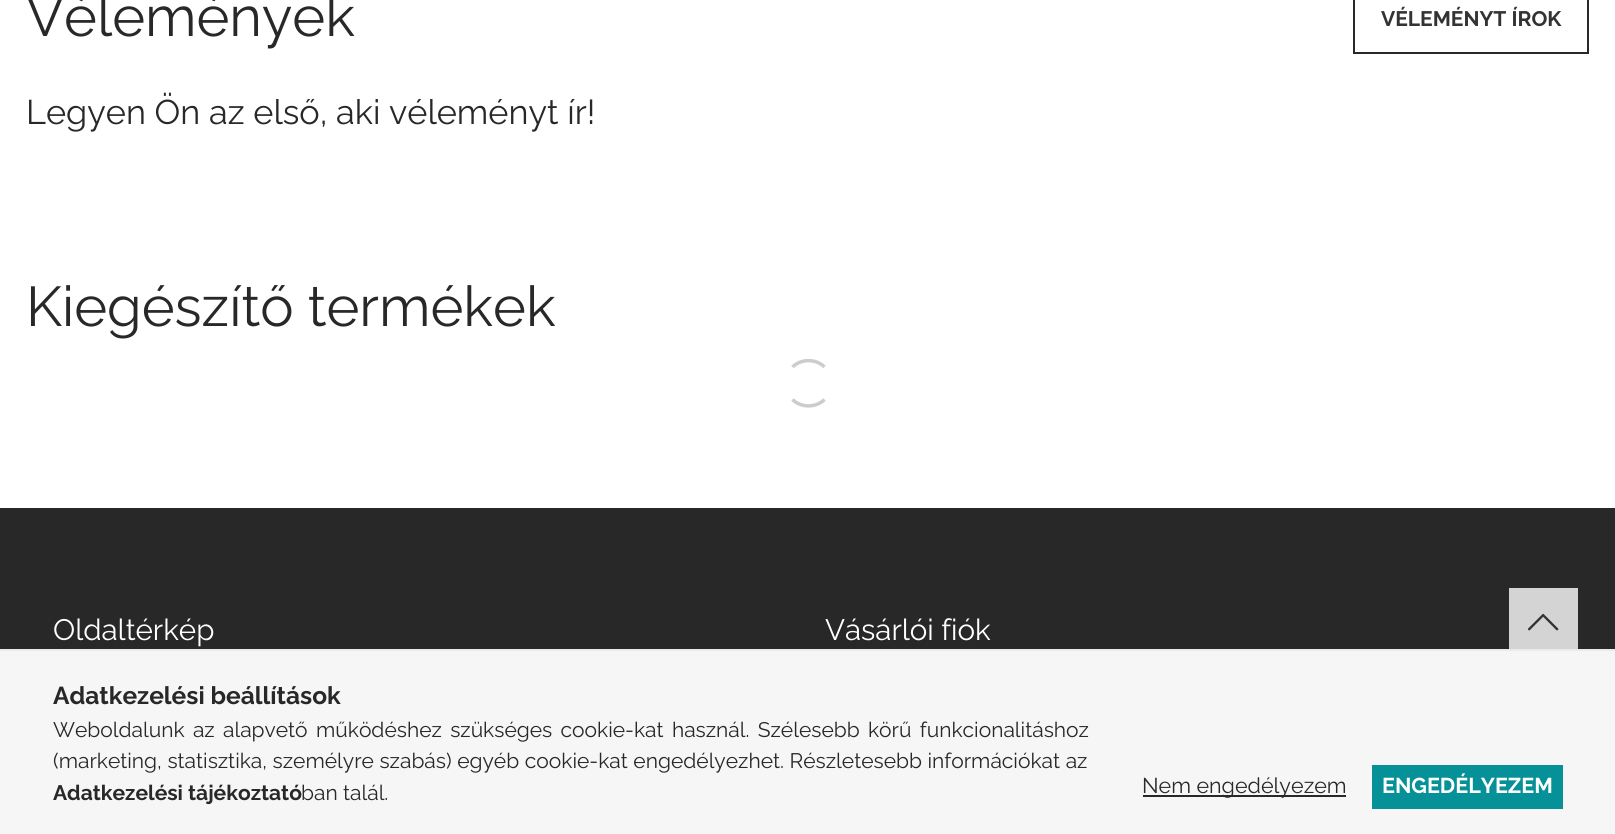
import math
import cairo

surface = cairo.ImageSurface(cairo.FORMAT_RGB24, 1615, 834)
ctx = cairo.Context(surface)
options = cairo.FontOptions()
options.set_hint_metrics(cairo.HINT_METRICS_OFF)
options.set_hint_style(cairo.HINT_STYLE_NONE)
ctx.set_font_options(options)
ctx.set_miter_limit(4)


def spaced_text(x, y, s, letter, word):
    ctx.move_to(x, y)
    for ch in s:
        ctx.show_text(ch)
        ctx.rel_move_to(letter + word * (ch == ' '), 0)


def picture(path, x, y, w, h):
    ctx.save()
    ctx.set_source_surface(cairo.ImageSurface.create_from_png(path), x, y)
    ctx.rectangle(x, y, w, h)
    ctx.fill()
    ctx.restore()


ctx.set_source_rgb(1, 1, 1)
ctx.paint()
ctx.select_font_face("Raleway")
ctx.set_font_size(56)
ctx.set_source_rgb(0.157, 0.157, 0.157)
ctx.move_to(26, 36)
ctx.show_text("Vélemények")
ctx.rectangle(1354, -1, 234, 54)
ctx.stroke()
ctx.select_font_face("Raleway", cairo.FONT_SLANT_NORMAL, cairo.FONT_WEIGHT_BOLD)
ctx.set_font_size(21)
ctx.set_source_rgb(0.2, 0.2, 0.2)
ctx.move_to(1381, 26)
ctx.show_text("VÉLEMÉNYT ÍROK")
ctx.select_font_face("Raleway")
ctx.set_font_size(34.25)
ctx.set_source_rgb(0.157, 0.157, 0.157)
ctx.move_to(26, 124)
ctx.show_text("Legyen Ön az első, aki véleményt ír!")
ctx.set_font_size(56)
ctx.move_to(26, 326)
ctx.show_text("Kiegészítő termékek")
ctx.new_path()
ctx.move_to(792.5, 367)
ctx.curve_to(801, 358.5, 816, 358.5, 824.5, 367)
ctx.move_to(824.5, 399.5)
ctx.curve_to(816, 408, 801, 408, 792.5, 399.5)
ctx.set_source_rgb(0.8, 0.8, 0.8)
ctx.set_line_width(3.5)
ctx.stroke()
ctx.set_source_rgb(0.157, 0.157, 0.157)
ctx.rectangle(0, 508, 1615, 141)
ctx.fill()
ctx.set_font_size(29.5)
ctx.set_source_rgb(1, 1, 1)
ctx.move_to(53, 640)
ctx.show_text("Oldaltérkép")
ctx.move_to(825, 640)
ctx.show_text("Vásárlói fiók")
ctx.set_source_rgb(0.831, 0.831, 0.831)
ctx.rectangle(1509, 588, 69, 61)
ctx.fill()
ctx.rectangle(1508, 587, 71, 72)
ctx.set_source_rgb(0.157, 0.157, 0.157)
ctx.set_line_width(2)
ctx.stroke()
picture("img1.png", 1527, 613, 32, 18)
ctx.set_source_rgb(0.961, 0.961, 0.961)
ctx.rectangle(0, 651, 1615, 183)
ctx.fill()
ctx.set_source_rgb(0.918, 0.918, 0.918)
ctx.rectangle(0, 649, 1615, 2)
ctx.fill()
ctx.select_font_face("Raleway", cairo.FONT_SLANT_NORMAL, cairo.FONT_WEIGHT_BOLD)
ctx.set_font_size(24.5)
ctx.set_source_rgb(0.157, 0.157, 0.157)
ctx.move_to(53, 704)
ctx.show_text("Adatkezelési beállítások")
ctx.select_font_face("Raleway")
ctx.set_font_size(21)
spaced_text(53, 737, "Weboldalunk az alapvető működéshez szükséges cookie-kat használ. Szélesebb körű funkcionalitáshoz", 0, 3)
spaced_text(53, 768, "(marketing, statisztika, személyre szabás) egyéb cookie-kat engedélyezhet. Részletesebb információkat az", 0, 0.25)
ctx.select_font_face("Raleway", cairo.FONT_SLANT_NORMAL, cairo.FONT_WEIGHT_BOLD)
ctx.move_to(53, 800)
ctx.show_text("Adatkezelési tájékoztató")
ctx.select_font_face("Raleway")
ctx.move_to(301, 800)
ctx.show_text("ban talál.")
ctx.rectangle(1143, 795, 203, 2)
ctx.fill()
ctx.set_font_size(21.5)
ctx.move_to(1142, 793)
ctx.show_text("Nem engedélyezem")
ctx.set_source_rgb(0.02, 0.569, 0.592)
ctx.rectangle(1372, 765, 191, 44)
ctx.fill()
ctx.select_font_face("Raleway", cairo.FONT_SLANT_NORMAL, cairo.FONT_WEIGHT_BOLD)
ctx.set_source_rgb(1, 1, 1)
ctx.move_to(1382, 793)
ctx.show_text("ENGEDÉLYEZEM")
surface.write_to_png("page.png")
